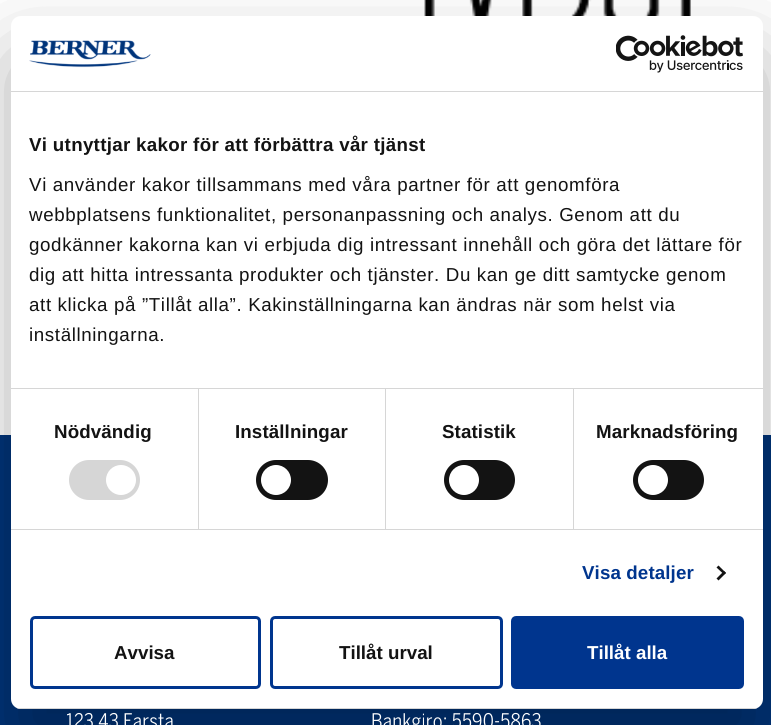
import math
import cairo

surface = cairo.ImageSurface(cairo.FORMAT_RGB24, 771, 725)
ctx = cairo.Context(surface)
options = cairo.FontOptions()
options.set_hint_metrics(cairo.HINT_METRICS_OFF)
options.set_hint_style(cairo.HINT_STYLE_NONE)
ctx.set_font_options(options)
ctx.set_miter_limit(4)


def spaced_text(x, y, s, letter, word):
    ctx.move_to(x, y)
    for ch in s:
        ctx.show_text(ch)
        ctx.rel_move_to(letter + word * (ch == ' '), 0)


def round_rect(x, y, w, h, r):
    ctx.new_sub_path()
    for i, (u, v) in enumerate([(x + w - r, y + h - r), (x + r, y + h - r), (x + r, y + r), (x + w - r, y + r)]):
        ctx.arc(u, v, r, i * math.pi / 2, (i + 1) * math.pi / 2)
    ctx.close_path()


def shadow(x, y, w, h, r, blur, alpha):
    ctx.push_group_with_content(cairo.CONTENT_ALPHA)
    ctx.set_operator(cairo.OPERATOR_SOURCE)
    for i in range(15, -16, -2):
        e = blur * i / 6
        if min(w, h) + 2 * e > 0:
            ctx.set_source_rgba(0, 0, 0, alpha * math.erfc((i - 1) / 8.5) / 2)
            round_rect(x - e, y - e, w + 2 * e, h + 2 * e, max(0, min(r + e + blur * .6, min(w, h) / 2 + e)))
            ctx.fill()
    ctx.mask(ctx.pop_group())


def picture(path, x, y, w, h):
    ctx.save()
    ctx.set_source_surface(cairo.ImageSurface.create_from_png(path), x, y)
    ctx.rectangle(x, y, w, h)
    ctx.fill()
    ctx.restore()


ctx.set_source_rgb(1, 1, 1)
ctx.paint()
picture("img3.png", 424, 0, 267, 16)
ctx.set_source_rgb(0, 0.204, 0.475)
ctx.rectangle(0, 435, 771, 290)
ctx.fill()
ctx.set_source_rgb(0, 0, 0)
shadow(11, 56, 752, 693, 10, 42.5, 0.3)
ctx.set_source_rgb(1, 1, 1)
round_rect(11, 16, 752, 693, 10)
ctx.fill()
ctx.set_source_rgb(0.839, 0.839, 0.839)
ctx.rectangle(11, 91, 752, 1)
ctx.fill()
picture("img1.png", 29, 40, 122, 28)
picture("img2.png", 616, 35, 127, 38)
ctx.rectangle(11, 388, 752, 1)
ctx.fill()
ctx.select_font_face("Liberation Sans", cairo.FONT_SLANT_NORMAL, cairo.FONT_WEIGHT_BOLD)
ctx.set_font_size(18.75)
ctx.set_source_rgb(0.078, 0.078, 0.078)
spaced_text(29, 151, "Vi utnyttjar kakor för att förbättra vår tjänst", 0.3, 0)
ctx.select_font_face("Liberation Sans")
spaced_text(29, 191, "Vi använder kakor tillsammans med våra partner för att genomföra", 0.62, 0)
spaced_text(29, 221, "webbplatsens funktionalitet, personanpassning och analys. Genom att du", 0.62, 0)
spaced_text(29, 251, "godkänner kakorna kan vi erbjuda dig intressant innehåll och göra det lättare för", 0.62, 0)
spaced_text(29, 281, "dig att hitta intressanta produkter och tjänster. Du kan ge ditt samtycke genom", 0.62, 0)
spaced_text(29, 311, "att klicka på ”Tillåt alla”. Kakinställningarna kan ändras när som helst via", 0.62, 0)
spaced_text(29, 341, "inställningarna.", 0.62, 0)
ctx.set_source_rgb(0.839, 0.839, 0.839)
ctx.rectangle(11, 529, 752, 1)
ctx.fill()
ctx.rectangle(198, 389, 1, 140)
ctx.fill()
ctx.select_font_face("Liberation Sans", cairo.FONT_SLANT_NORMAL, cairo.FONT_WEIGHT_BOLD)
ctx.set_source_rgb(0.078, 0.078, 0.078)
spaced_text(54, 438, "Nödvändig", 0.1, 0)
ctx.set_source_rgb(0.839, 0.839, 0.839)
round_rect(69, 460, 71, 40, 20)
ctx.fill()
ctx.set_source_rgb(1, 1, 1)
ctx.arc(121, 480, 15, 0, 2 * math.pi)
ctx.fill()
ctx.set_source_rgb(0.839, 0.839, 0.839)
ctx.rectangle(385, 389, 1, 140)
ctx.fill()
ctx.set_source_rgb(0.078, 0.078, 0.078)
spaced_text(235, 438, "Inställningar", 0.1, 0)
round_rect(256, 460, 72, 40, 20)
ctx.fill()
ctx.set_source_rgb(1, 1, 1)
ctx.arc(276, 480, 15, 0, 2 * math.pi)
ctx.fill()
ctx.set_source_rgb(0.839, 0.839, 0.839)
ctx.rectangle(573, 389, 1, 140)
ctx.fill()
ctx.set_source_rgb(0.078, 0.078, 0.078)
spaced_text(442, 438, "Statistik", 0.1, 0)
round_rect(444, 460, 71, 40, 20)
ctx.fill()
ctx.set_source_rgb(1, 1, 1)
ctx.arc(464, 480, 15, 0, 2 * math.pi)
ctx.fill()
ctx.set_source_rgb(0.078, 0.078, 0.078)
spaced_text(596, 438, "Marknadsföring", 0.1, 0)
round_rect(633, 460, 71, 40, 20)
ctx.fill()
ctx.set_source_rgb(1, 1, 1)
ctx.arc(653, 480, 15, 0, 2 * math.pi)
ctx.fill()
ctx.set_source_rgb(0, 0.208, 0.557)
spaced_text(582, 579, "Visa detaljer", 0.1, 0)
ctx.set_source_rgb(0.078, 0.078, 0.078)
ctx.new_path()
ctx.move_to(718.5, 565.5)
ctx.line_to(726, 573)
ctx.line_to(724, 574.5)
ctx.line_to(716.5, 567.5)
ctx.close_path()
ctx.fill()
ctx.new_path()
ctx.move_to(724, 571)
ctx.line_to(726, 573)
ctx.line_to(718.5, 580.5)
ctx.line_to(716.5, 578.5)
ctx.close_path()
ctx.fill()
ctx.save()
round_rect(11, 16, 752, 693, 10)
ctx.clip()
ctx.set_source_rgb(0.839, 0.839, 0.839)
ctx.rectangle(11, 708, 752, 1)
ctx.fill()
ctx.restore()
round_rect(31.5, 617.5, 228, 70, 3.5)
ctx.set_source_rgb(0, 0.208, 0.557)
ctx.set_line_width(3)
ctx.stroke()
ctx.set_source_rgb(0.078, 0.078, 0.078)
ctx.move_to(114, 659)
ctx.show_text("Avvisa")
round_rect(271.5, 617.5, 230, 70, 3.5)
ctx.set_source_rgb(0, 0.208, 0.557)
ctx.stroke()
ctx.set_source_rgb(0.078, 0.078, 0.078)
ctx.move_to(339, 659)
ctx.show_text("Tillåt urval")
ctx.set_source_rgb(0, 0.208, 0.557)
round_rect(512.5, 617.5, 230, 70, 3.5)
ctx.fill_preserve()
ctx.stroke()
ctx.set_source_rgb(1, 1, 1)
ctx.move_to(587, 659)
ctx.show_text("Tillåt alla")
ctx.select_font_face("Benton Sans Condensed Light")
ctx.set_font_size(20)
spaced_text(66, 728, "123 43 Farsta", 0.2, 0)
spaced_text(371, 728, "Bankgiro: 5590-5863", 0.2, 0)
surface.write_to_png("page.png")
